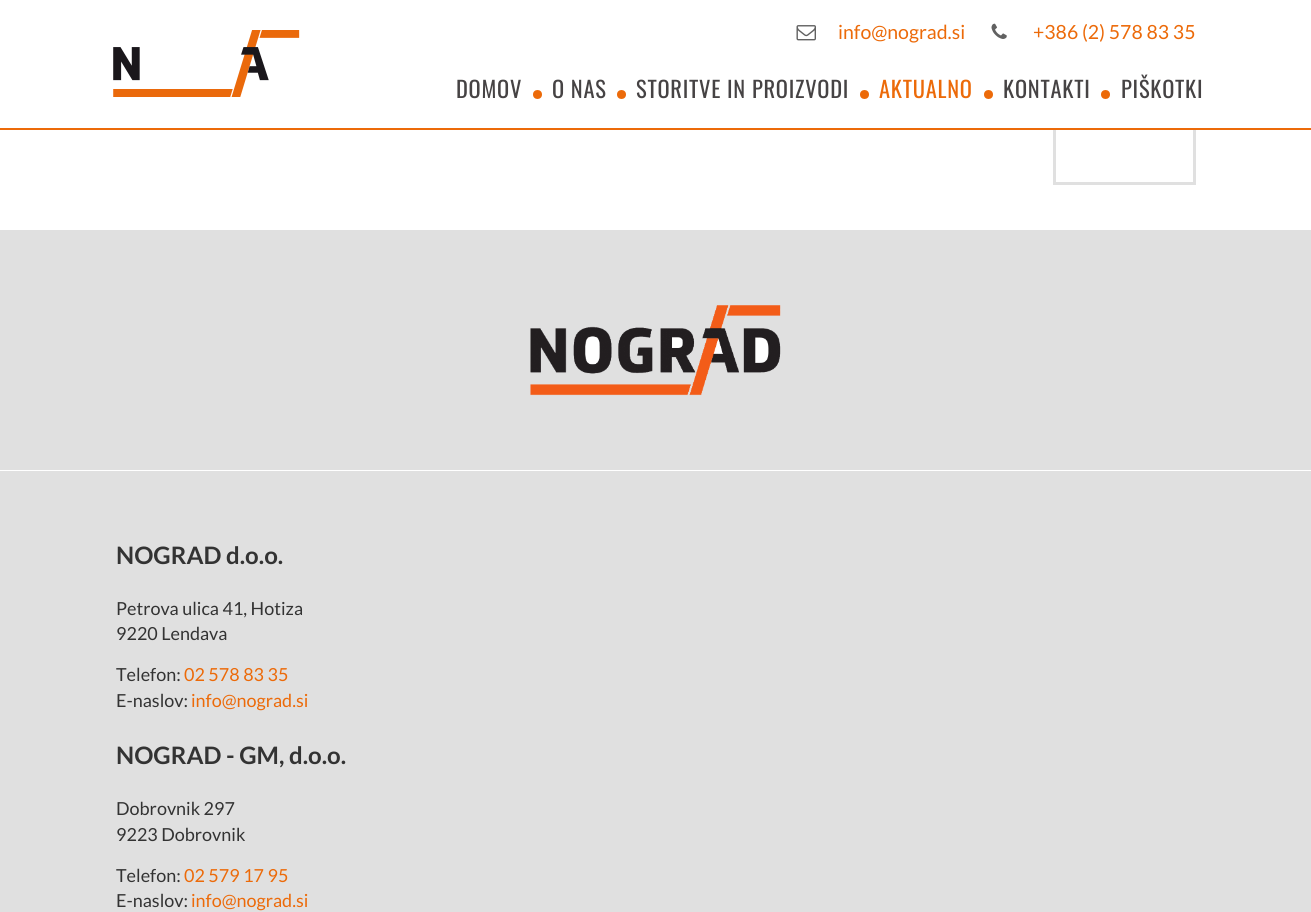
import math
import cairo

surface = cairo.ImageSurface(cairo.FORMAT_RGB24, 1311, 912)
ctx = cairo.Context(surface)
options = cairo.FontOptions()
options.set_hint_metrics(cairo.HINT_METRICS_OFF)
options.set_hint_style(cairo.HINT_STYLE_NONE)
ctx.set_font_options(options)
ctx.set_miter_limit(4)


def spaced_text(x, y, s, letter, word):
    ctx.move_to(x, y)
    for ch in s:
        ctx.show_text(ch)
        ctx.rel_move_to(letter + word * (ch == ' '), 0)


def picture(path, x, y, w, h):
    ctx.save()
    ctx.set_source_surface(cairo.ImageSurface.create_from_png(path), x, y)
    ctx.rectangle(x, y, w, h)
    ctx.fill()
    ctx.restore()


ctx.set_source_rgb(1, 1, 1)
ctx.paint()
ctx.rectangle(1054.5, -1.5, 140, 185)
ctx.set_source_rgb(0.878, 0.878, 0.878)
ctx.set_line_width(3)
ctx.stroke()
picture("img1.png", 796, 25, 20, 16)
ctx.select_font_face("Lato")
ctx.set_font_size(19.5)
ctx.set_source_rgb(0.922, 0.416, 0.039)
ctx.move_to(838, 39)
ctx.show_text("info@nograd.si")
picture("img2.png", 991, 23, 16, 16)
ctx.set_source_rgb(1, 1, 1)
ctx.rectangle(1053, 0, 143, 128)
ctx.fill()
ctx.set_source_rgb(0.922, 0.416, 0.039)
ctx.move_to(1033, 39)
ctx.show_text("+386 (2) 578 83 35")
ctx.rectangle(0, 128, 1311, 2)
ctx.fill()
picture("img3.png", 113, 30, 187, 67)
ctx.select_font_face("Oswald")
ctx.set_font_size(22.5)
ctx.set_source_rgb(0.275, 0.263, 0.267)
spaced_text(456, 98, "DOMOV", 0.75, 0)
ctx.set_source_rgb(0.922, 0.416, 0.039)
ctx.new_path()
ctx.arc(537.5, 94.5, 4.5, 0, 2 * math.pi)
ctx.fill()
ctx.set_source_rgb(0.275, 0.263, 0.267)
spaced_text(552, 98, "O NAS", 0.75, 0)
ctx.set_source_rgb(0.922, 0.416, 0.039)
ctx.new_path()
ctx.arc(621.5, 94.5, 4.5, 0, 2 * math.pi)
ctx.fill()
ctx.set_source_rgb(0.275, 0.263, 0.267)
spaced_text(636, 98, "STORITVE IN PROIZVODI", 0.75, 0)
ctx.set_source_rgb(0.922, 0.416, 0.039)
ctx.new_path()
ctx.arc(864.5, 94.5, 4.5, 0, 2 * math.pi)
ctx.fill()
spaced_text(879, 98, "AKTUALNO", 0.75, 0)
ctx.new_path()
ctx.arc(988.5, 94.5, 4.5, 0, 2 * math.pi)
ctx.fill()
ctx.set_source_rgb(0.275, 0.263, 0.267)
spaced_text(1003, 98, "KONTAKTI", 0.75, 0)
ctx.set_source_rgb(0.922, 0.416, 0.039)
ctx.new_path()
ctx.arc(1105.5, 94.5, 4.5, 0, 2 * math.pi)
ctx.fill()
ctx.set_source_rgb(0.275, 0.263, 0.267)
spaced_text(1121, 98, "PIŠKOTKI", 0.75, 0)
ctx.set_source_rgb(0.878, 0.878, 0.878)
ctx.rectangle(0, 230, 1311, 240)
ctx.fill()
picture("img4.png", 530, 305, 251, 91)
ctx.rectangle(0, 471, 1311, 441)
ctx.fill()
ctx.select_font_face("Lato", cairo.FONT_SLANT_NORMAL, cairo.FONT_WEIGHT_BOLD)
ctx.set_font_size(24)
ctx.set_source_rgb(0.2, 0.2, 0.2)
ctx.move_to(116, 564)
ctx.show_text("NOGRAD d.o.o.")
ctx.select_font_face("Lato")
ctx.set_font_size(18)
ctx.move_to(116, 615)
ctx.show_text("Petrova ulica 41, Hotiza")
ctx.move_to(116, 640)
ctx.show_text("9220 Lendava")
ctx.move_to(116, 681)
ctx.show_text("Telefon:")
ctx.set_source_rgb(0.922, 0.416, 0.039)
ctx.move_to(184, 681)
ctx.show_text("02 578 83 35")
ctx.set_source_rgb(0.2, 0.2, 0.2)
ctx.move_to(116, 707)
ctx.show_text("E-naslov:")
ctx.set_source_rgb(0.922, 0.416, 0.039)
ctx.move_to(191, 707)
ctx.show_text("info@nograd.si")
ctx.select_font_face("Lato", cairo.FONT_SLANT_NORMAL, cairo.FONT_WEIGHT_BOLD)
ctx.set_font_size(24)
ctx.set_source_rgb(0.2, 0.2, 0.2)
ctx.move_to(116, 764)
ctx.show_text("NOGRAD - GM, d.o.o.")
ctx.select_font_face("Lato")
ctx.set_font_size(18)
ctx.move_to(116, 815)
ctx.show_text("Dobrovnik 297")
ctx.move_to(116, 841)
ctx.show_text("9223 Dobrovnik")
ctx.move_to(116, 882)
ctx.show_text("Telefon:")
ctx.set_source_rgb(0.922, 0.416, 0.039)
ctx.move_to(184, 882)
ctx.show_text("02 579 17 95")
ctx.set_source_rgb(0.2, 0.2, 0.2)
ctx.move_to(116, 907)
ctx.show_text("E-naslov:")
ctx.set_source_rgb(0.922, 0.416, 0.039)
ctx.move_to(191, 907)
ctx.show_text("info@nograd.si")
surface.write_to_png("page.png")
